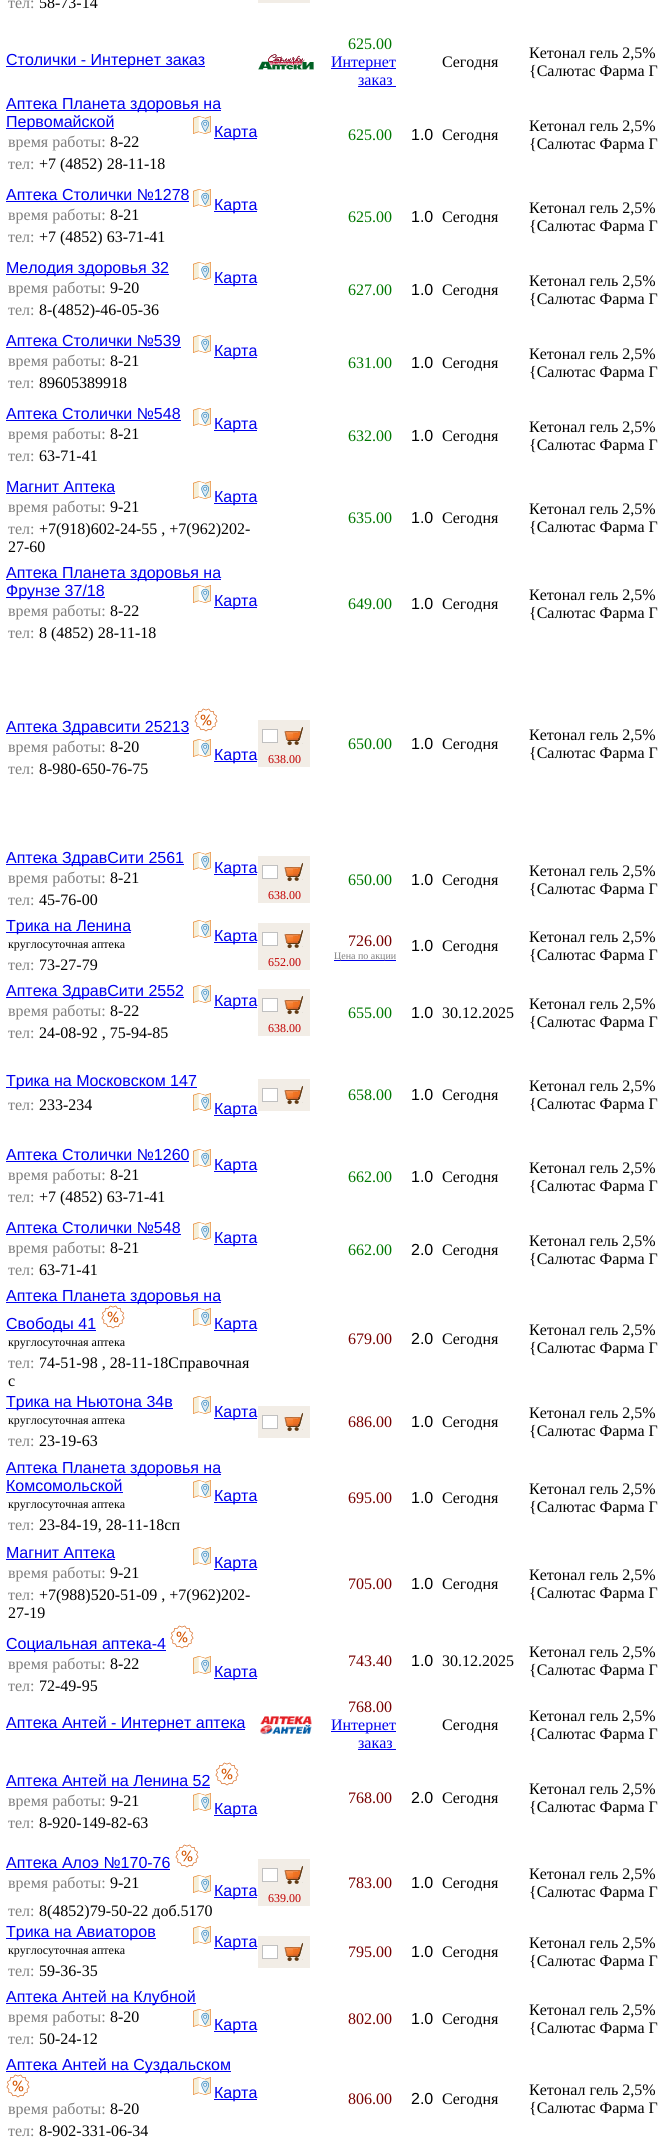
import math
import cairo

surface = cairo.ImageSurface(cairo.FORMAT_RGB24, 658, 2139)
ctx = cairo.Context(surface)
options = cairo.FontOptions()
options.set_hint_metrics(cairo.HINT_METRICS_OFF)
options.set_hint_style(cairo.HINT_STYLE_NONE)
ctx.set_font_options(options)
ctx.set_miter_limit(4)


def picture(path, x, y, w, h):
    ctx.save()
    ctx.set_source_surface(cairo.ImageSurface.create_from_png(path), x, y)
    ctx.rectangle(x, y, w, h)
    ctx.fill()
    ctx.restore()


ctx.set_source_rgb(1, 1, 1)
ctx.paint()
ctx.select_font_face("Liberation Serif")
ctx.set_font_size(16)
ctx.set_source_rgb(0.494, 0.494, 0.494)
ctx.move_to(8, 8)
ctx.show_text("тел:")
ctx.set_source_rgb(0, 0, 0)
ctx.move_to(39, 8)
ctx.show_text("58-73-14")
ctx.set_source_rgb(0.949, 0.929, 0.902)
ctx.rectangle(258, 0, 52, 3)
ctx.fill()
ctx.set_source_rgb(0, 0, 0.933)
ctx.rectangle(6, 66, 199, 1)
ctx.fill()
ctx.select_font_face("Liberation Sans")
ctx.move_to(6, 65)
ctx.show_text("Столички - Интернет заказ")
picture("img1.png", 258, 54, 56, 16)
ctx.select_font_face("Liberation Serif")
ctx.set_source_rgb(0, 0.467, 0)
ctx.move_to(348, 49)
ctx.show_text("625.00")
ctx.set_source_rgb(0, 0, 0.933)
ctx.rectangle(331, 68, 65, 1)
ctx.fill()
ctx.move_to(331, 67)
ctx.show_text("Интернет")
ctx.move_to(358, 85)
ctx.show_text("заказ")
ctx.rectangle(358, 86, 38, 1)
ctx.fill()
ctx.set_source_rgb(0, 0, 0)
ctx.move_to(442, 67)
ctx.show_text("Сегодня")
ctx.move_to(529, 58)
ctx.show_text("Кетонал гель 2,5%")
ctx.move_to(529, 76)
ctx.show_text("{Салютас Фарма Г")
ctx.set_source_rgb(0, 0, 0.933)
ctx.rectangle(6, 110, 215, 1)
ctx.fill()
ctx.select_font_face("Liberation Sans")
ctx.move_to(6, 109)
ctx.show_text("Аптека Планета здоровья на")
ctx.rectangle(6, 128, 108, 1)
ctx.fill()
ctx.move_to(6, 127)
ctx.show_text("Первомайской")
picture("img2.png", 193, 116, 18, 18)
ctx.rectangle(214, 138, 43, 1)
ctx.fill()
ctx.move_to(214, 137)
ctx.show_text("Карта")
ctx.select_font_face("Liberation Serif")
ctx.set_source_rgb(0.494, 0.494, 0.494)
ctx.move_to(8, 147)
ctx.show_text("время работы:")
ctx.set_source_rgb(0, 0, 0)
ctx.move_to(110, 147)
ctx.show_text("8-22")
ctx.set_source_rgb(0.494, 0.494, 0.494)
ctx.move_to(8, 169)
ctx.show_text("тел:")
ctx.set_source_rgb(0, 0, 0)
ctx.move_to(39, 169)
ctx.show_text("+7 (4852) 28-11-18")
ctx.set_source_rgb(0, 0.467, 0)
ctx.move_to(348, 140)
ctx.show_text("625.00")
ctx.select_font_face("Liberation Sans")
ctx.set_source_rgb(0, 0, 0)
ctx.move_to(411, 140)
ctx.show_text("1.0")
ctx.select_font_face("Liberation Serif")
ctx.move_to(442, 140)
ctx.show_text("Сегодня")
ctx.move_to(529, 131)
ctx.show_text("Кетонал гель 2,5%")
ctx.move_to(529, 149)
ctx.show_text("{Салютас Фарма Г")
ctx.select_font_face("Liberation Sans")
ctx.set_source_rgb(0, 0, 0.933)
ctx.move_to(6, 200)
ctx.show_text("Аптека Столички №1278")
ctx.rectangle(6, 201, 183, 1)
ctx.fill()
picture("img2.png", 193, 189, 18, 18)
ctx.rectangle(214, 211, 43, 1)
ctx.fill()
ctx.move_to(214, 210)
ctx.show_text("Карта")
ctx.select_font_face("Liberation Serif")
ctx.set_source_rgb(0.494, 0.494, 0.494)
ctx.move_to(8, 220)
ctx.show_text("время работы:")
ctx.set_source_rgb(0, 0, 0)
ctx.move_to(110, 220)
ctx.show_text("8-21")
ctx.set_source_rgb(0.494, 0.494, 0.494)
ctx.move_to(8, 242)
ctx.show_text("тел:")
ctx.set_source_rgb(0, 0, 0)
ctx.move_to(39, 242)
ctx.show_text("+7 (4852) 63-71-41")
ctx.set_source_rgb(0, 0.467, 0)
ctx.move_to(348, 222)
ctx.show_text("625.00")
ctx.select_font_face("Liberation Sans")
ctx.set_source_rgb(0, 0, 0)
ctx.move_to(411, 222)
ctx.show_text("1.0")
ctx.select_font_face("Liberation Serif")
ctx.move_to(442, 222)
ctx.show_text("Сегодня")
ctx.move_to(529, 213)
ctx.show_text("Кетонал гель 2,5%")
ctx.move_to(529, 231)
ctx.show_text("{Салютас Фарма Г")
ctx.set_source_rgb(0, 0, 0.933)
ctx.rectangle(6, 274, 163, 1)
ctx.fill()
ctx.select_font_face("Liberation Sans")
ctx.move_to(6, 273)
ctx.show_text("Мелодия здоровья 32")
picture("img2.png", 193, 262, 18, 18)
ctx.rectangle(214, 284, 43, 1)
ctx.fill()
ctx.move_to(214, 283)
ctx.show_text("Карта")
ctx.select_font_face("Liberation Serif")
ctx.set_source_rgb(0.494, 0.494, 0.494)
ctx.move_to(8, 293)
ctx.show_text("время работы:")
ctx.set_source_rgb(0, 0, 0)
ctx.move_to(110, 293)
ctx.show_text("9-20")
ctx.set_source_rgb(0.494, 0.494, 0.494)
ctx.move_to(8, 315)
ctx.show_text("тел:")
ctx.set_source_rgb(0, 0, 0)
ctx.move_to(39, 315)
ctx.show_text("8-(4852)-46-05-36")
ctx.set_source_rgb(0, 0.467, 0)
ctx.move_to(348, 295)
ctx.show_text("627.00")
ctx.select_font_face("Liberation Sans")
ctx.set_source_rgb(0, 0, 0)
ctx.move_to(411, 295)
ctx.show_text("1.0")
ctx.select_font_face("Liberation Serif")
ctx.move_to(442, 295)
ctx.show_text("Сегодня")
ctx.move_to(529, 286)
ctx.show_text("Кетонал гель 2,5%")
ctx.move_to(529, 304)
ctx.show_text("{Салютас Фарма Г")
ctx.select_font_face("Liberation Sans")
ctx.set_source_rgb(0, 0, 0.933)
ctx.move_to(6, 346)
ctx.show_text("Аптека Столички №539")
ctx.rectangle(6, 347, 175, 1)
ctx.fill()
picture("img2.png", 193, 335, 18, 18)
ctx.rectangle(214, 357, 43, 1)
ctx.fill()
ctx.move_to(214, 356)
ctx.show_text("Карта")
ctx.select_font_face("Liberation Serif")
ctx.set_source_rgb(0.494, 0.494, 0.494)
ctx.move_to(8, 366)
ctx.show_text("время работы:")
ctx.set_source_rgb(0, 0, 0)
ctx.move_to(110, 366)
ctx.show_text("8-21")
ctx.set_source_rgb(0.494, 0.494, 0.494)
ctx.move_to(8, 388)
ctx.show_text("тел:")
ctx.set_source_rgb(0, 0, 0)
ctx.move_to(39, 388)
ctx.show_text("89605389918")
ctx.set_source_rgb(0, 0.467, 0)
ctx.move_to(348, 368)
ctx.show_text("631.00")
ctx.select_font_face("Liberation Sans")
ctx.set_source_rgb(0, 0, 0)
ctx.move_to(411, 368)
ctx.show_text("1.0")
ctx.select_font_face("Liberation Serif")
ctx.move_to(442, 368)
ctx.show_text("Сегодня")
ctx.move_to(529, 359)
ctx.show_text("Кетонал гель 2,5%")
ctx.move_to(529, 377)
ctx.show_text("{Салютас Фарма Г")
ctx.select_font_face("Liberation Sans")
ctx.set_source_rgb(0, 0, 0.933)
ctx.move_to(6, 419)
ctx.show_text("Аптека Столички №548")
ctx.rectangle(6, 420, 175, 1)
ctx.fill()
picture("img2.png", 193, 408, 18, 18)
ctx.rectangle(214, 430, 43, 1)
ctx.fill()
ctx.move_to(214, 429)
ctx.show_text("Карта")
ctx.select_font_face("Liberation Serif")
ctx.set_source_rgb(0.494, 0.494, 0.494)
ctx.move_to(8, 439)
ctx.show_text("время работы:")
ctx.set_source_rgb(0, 0, 0)
ctx.move_to(110, 439)
ctx.show_text("8-21")
ctx.set_source_rgb(0.494, 0.494, 0.494)
ctx.move_to(8, 461)
ctx.show_text("тел:")
ctx.set_source_rgb(0, 0, 0)
ctx.move_to(39, 461)
ctx.show_text("63-71-41")
ctx.set_source_rgb(0, 0.467, 0)
ctx.move_to(348, 441)
ctx.show_text("632.00")
ctx.select_font_face("Liberation Sans")
ctx.set_source_rgb(0, 0, 0)
ctx.move_to(411, 441)
ctx.show_text("1.0")
ctx.select_font_face("Liberation Serif")
ctx.move_to(442, 441)
ctx.show_text("Сегодня")
ctx.move_to(529, 432)
ctx.show_text("Кетонал гель 2,5%")
ctx.move_to(529, 450)
ctx.show_text("{Салютас Фарма Г")
ctx.select_font_face("Liberation Sans")
ctx.set_source_rgb(0, 0, 0.933)
ctx.move_to(6, 492)
ctx.show_text("Магнит Аптека")
ctx.rectangle(6, 493, 109, 1)
ctx.fill()
picture("img2.png", 193, 481, 18, 18)
ctx.rectangle(214, 503, 43, 1)
ctx.fill()
ctx.move_to(214, 502)
ctx.show_text("Карта")
ctx.select_font_face("Liberation Serif")
ctx.set_source_rgb(0.494, 0.494, 0.494)
ctx.move_to(8, 512)
ctx.show_text("время работы:")
ctx.set_source_rgb(0, 0, 0)
ctx.move_to(110, 512)
ctx.show_text("9-21")
ctx.set_source_rgb(0.494, 0.494, 0.494)
ctx.move_to(8, 534)
ctx.show_text("тел:")
ctx.set_source_rgb(0, 0, 0)
ctx.move_to(39, 534)
ctx.show_text("+7(918)602-24-55 , +7(962)202-")
ctx.move_to(8, 552)
ctx.show_text("27-60")
ctx.set_source_rgb(0, 0.467, 0)
ctx.move_to(348, 523)
ctx.show_text("635.00")
ctx.select_font_face("Liberation Sans")
ctx.set_source_rgb(0, 0, 0)
ctx.move_to(411, 523)
ctx.show_text("1.0")
ctx.select_font_face("Liberation Serif")
ctx.move_to(442, 523)
ctx.show_text("Сегодня")
ctx.move_to(529, 514)
ctx.show_text("Кетонал гель 2,5%")
ctx.move_to(529, 532)
ctx.show_text("{Салютас Фарма Г")
ctx.set_source_rgb(0, 0, 0.933)
ctx.rectangle(6, 579, 215, 1)
ctx.fill()
ctx.select_font_face("Liberation Sans")
ctx.move_to(6, 578)
ctx.show_text("Аптека Планета здоровья на")
ctx.rectangle(6, 597, 99, 1)
ctx.fill()
ctx.move_to(6, 596)
ctx.show_text("Фрунзе 37/18")
picture("img2.png", 193, 585, 18, 18)
ctx.rectangle(214, 607, 43, 1)
ctx.fill()
ctx.move_to(214, 606)
ctx.show_text("Карта")
ctx.select_font_face("Liberation Serif")
ctx.set_source_rgb(0.494, 0.494, 0.494)
ctx.move_to(8, 616)
ctx.show_text("время работы:")
ctx.set_source_rgb(0, 0, 0)
ctx.move_to(110, 616)
ctx.show_text("8-22")
ctx.set_source_rgb(0.494, 0.494, 0.494)
ctx.move_to(8, 638)
ctx.show_text("тел:")
ctx.set_source_rgb(0, 0, 0)
ctx.move_to(39, 638)
ctx.show_text("8 (4852) 28-11-18")
ctx.set_source_rgb(0, 0.467, 0)
ctx.move_to(348, 609)
ctx.show_text("649.00")
ctx.select_font_face("Liberation Sans")
ctx.set_source_rgb(0, 0, 0)
ctx.move_to(411, 609)
ctx.show_text("1.0")
ctx.select_font_face("Liberation Serif")
ctx.move_to(442, 609)
ctx.show_text("Сегодня")
ctx.move_to(529, 600)
ctx.show_text("Кетонал гель 2,5%")
ctx.move_to(529, 618)
ctx.show_text("{Салютас Фарма Г")
ctx.set_source_rgb(0, 0, 0.933)
ctx.rectangle(6, 733, 183, 1)
ctx.fill()
ctx.select_font_face("Liberation Sans")
ctx.move_to(6, 732)
ctx.show_text("Аптека Здравсити 25213")
picture("img3.png", 194, 708, 24, 24)
picture("img2.png", 193, 739, 18, 18)
ctx.rectangle(214, 761, 43, 1)
ctx.fill()
ctx.move_to(214, 760)
ctx.show_text("Карта")
ctx.select_font_face("Liberation Serif")
ctx.set_source_rgb(0.494, 0.494, 0.494)
ctx.move_to(8, 752)
ctx.show_text("время работы:")
ctx.set_source_rgb(0, 0, 0)
ctx.move_to(110, 752)
ctx.show_text("8-20")
ctx.set_source_rgb(0.494, 0.494, 0.494)
ctx.move_to(8, 774)
ctx.show_text("тел:")
ctx.set_source_rgb(0, 0, 0)
ctx.move_to(39, 774)
ctx.show_text("8-980-650-76-75")
ctx.set_source_rgb(0, 0.467, 0)
ctx.move_to(348, 749)
ctx.show_text("650.00")
ctx.select_font_face("Liberation Sans")
ctx.set_source_rgb(0, 0, 0)
ctx.move_to(411, 749)
ctx.show_text("1.0")
ctx.select_font_face("Liberation Serif")
ctx.move_to(442, 749)
ctx.show_text("Сегодня")
ctx.move_to(529, 740)
ctx.show_text("Кетонал гель 2,5%")
ctx.move_to(529, 758)
ctx.show_text("{Салютас Фарма Г")
ctx.set_source_rgb(0.949, 0.929, 0.902)
ctx.rectangle(258, 720, 52, 47)
ctx.fill()
ctx.set_source_rgb(1, 1, 1)
ctx.rectangle(262.5, 729.5, 15, 13)
ctx.fill_preserve()
ctx.set_source_rgb(0.753, 0.753, 0.753)
ctx.set_line_width(1)
ctx.stroke()
picture("img4.png", 284, 727, 20, 19)
ctx.set_font_size(12)
ctx.set_source_rgb(0.757, 0, 0)
ctx.move_to(268, 763)
ctx.show_text("638.00")
ctx.set_source_rgb(0, 0, 0.933)
ctx.rectangle(6, 864, 178, 1)
ctx.fill()
ctx.select_font_face("Liberation Sans")
ctx.set_font_size(16)
ctx.move_to(6, 863)
ctx.show_text("Аптека ЗдравСити 2561")
picture("img2.png", 193, 852, 18, 18)
ctx.rectangle(214, 874, 43, 1)
ctx.fill()
ctx.move_to(214, 873)
ctx.show_text("Карта")
ctx.select_font_face("Liberation Serif")
ctx.set_source_rgb(0.494, 0.494, 0.494)
ctx.move_to(8, 883)
ctx.show_text("время работы:")
ctx.set_source_rgb(0, 0, 0)
ctx.move_to(110, 883)
ctx.show_text("8-21")
ctx.set_source_rgb(0.494, 0.494, 0.494)
ctx.move_to(8, 905)
ctx.show_text("тел:")
ctx.set_source_rgb(0, 0, 0)
ctx.move_to(39, 905)
ctx.show_text("45-76-00")
ctx.set_source_rgb(0, 0.467, 0)
ctx.move_to(348, 885)
ctx.show_text("650.00")
ctx.select_font_face("Liberation Sans")
ctx.set_source_rgb(0, 0, 0)
ctx.move_to(411, 885)
ctx.show_text("1.0")
ctx.select_font_face("Liberation Serif")
ctx.move_to(442, 885)
ctx.show_text("Сегодня")
ctx.move_to(529, 876)
ctx.show_text("Кетонал гель 2,5%")
ctx.move_to(529, 894)
ctx.show_text("{Салютас Фарма Г")
ctx.set_source_rgb(0.949, 0.929, 0.902)
ctx.rectangle(258, 856, 52, 47)
ctx.fill()
ctx.set_source_rgb(1, 1, 1)
ctx.rectangle(262.5, 865.5, 15, 13)
ctx.fill_preserve()
ctx.set_source_rgb(0.753, 0.753, 0.753)
ctx.stroke()
picture("img4.png", 284, 863, 20, 19)
ctx.set_font_size(12)
ctx.set_source_rgb(0.757, 0, 0)
ctx.move_to(268, 899)
ctx.show_text("638.00")
ctx.set_source_rgb(0, 0, 0.933)
ctx.rectangle(6, 932, 125, 1)
ctx.fill()
ctx.select_font_face("Liberation Sans")
ctx.set_font_size(16)
ctx.move_to(6, 931)
ctx.show_text("Трика на Ленина")
picture("img2.png", 193, 920, 18, 18)
ctx.rectangle(214, 942, 43, 1)
ctx.fill()
ctx.move_to(214, 941)
ctx.show_text("Карта")
ctx.select_font_face("Liberation Serif")
ctx.set_font_size(12)
ctx.set_source_rgb(0, 0, 0)
ctx.move_to(8, 948)
ctx.show_text("круглосуточная аптека")
ctx.set_font_size(16)
ctx.set_source_rgb(0.494, 0.494, 0.494)
ctx.move_to(8, 970)
ctx.show_text("тел:")
ctx.set_source_rgb(0, 0, 0)
ctx.move_to(39, 970)
ctx.show_text("73-27-79")
ctx.set_source_rgb(0.467, 0, 0)
ctx.move_to(348, 946)
ctx.show_text("726.00")
ctx.set_source_rgb(0, 0, 0.933)
ctx.rectangle(334, 960, 62, 1)
ctx.fill()
ctx.set_font_size(10)
ctx.set_source_rgb(0.494, 0.494, 0.494)
ctx.move_to(334, 959)
ctx.show_text("Цена по акции")
ctx.select_font_face("Liberation Sans")
ctx.set_font_size(16)
ctx.set_source_rgb(0, 0, 0)
ctx.move_to(411, 951)
ctx.show_text("1.0")
ctx.select_font_face("Liberation Serif")
ctx.move_to(442, 951)
ctx.show_text("Сегодня")
ctx.move_to(529, 942)
ctx.show_text("Кетонал гель 2,5%")
ctx.move_to(529, 960)
ctx.show_text("{Салютас Фарма Г")
ctx.set_source_rgb(0.949, 0.929, 0.902)
ctx.rectangle(258, 923, 52, 47)
ctx.fill()
ctx.set_source_rgb(1, 1, 1)
ctx.rectangle(262.5, 932.5, 15, 13)
ctx.fill_preserve()
ctx.set_source_rgb(0.753, 0.753, 0.753)
ctx.stroke()
picture("img4.png", 284, 930, 20, 19)
ctx.set_font_size(12)
ctx.set_source_rgb(0.757, 0, 0)
ctx.move_to(268, 966)
ctx.show_text("652.00")
ctx.set_source_rgb(0, 0, 0.933)
ctx.rectangle(6, 997, 178, 1)
ctx.fill()
ctx.select_font_face("Liberation Sans")
ctx.set_font_size(16)
ctx.move_to(6, 996)
ctx.show_text("Аптека ЗдравСити 2552")
picture("img2.png", 193, 985, 18, 18)
ctx.rectangle(214, 1007, 43, 1)
ctx.fill()
ctx.move_to(214, 1006)
ctx.show_text("Карта")
ctx.select_font_face("Liberation Serif")
ctx.set_source_rgb(0.494, 0.494, 0.494)
ctx.move_to(8, 1016)
ctx.show_text("время работы:")
ctx.set_source_rgb(0, 0, 0)
ctx.move_to(110, 1016)
ctx.show_text("8-22")
ctx.set_source_rgb(0.494, 0.494, 0.494)
ctx.move_to(8, 1038)
ctx.show_text("тел:")
ctx.set_source_rgb(0, 0, 0)
ctx.move_to(39, 1038)
ctx.show_text("24-08-92 , 75-94-85")
ctx.set_source_rgb(0, 0.467, 0)
ctx.move_to(348, 1018)
ctx.show_text("655.00")
ctx.select_font_face("Liberation Sans")
ctx.set_source_rgb(0, 0, 0)
ctx.move_to(411, 1018)
ctx.show_text("1.0")
ctx.select_font_face("Liberation Serif")
ctx.move_to(442, 1018)
ctx.show_text("30.12.2025")
ctx.move_to(529, 1009)
ctx.show_text("Кетонал гель 2,5%")
ctx.move_to(529, 1027)
ctx.show_text("{Салютас Фарма Г")
ctx.set_source_rgb(0.949, 0.929, 0.902)
ctx.rectangle(258, 989, 52, 47)
ctx.fill()
ctx.set_source_rgb(1, 1, 1)
ctx.rectangle(262.5, 998.5, 15, 13)
ctx.fill_preserve()
ctx.set_source_rgb(0.753, 0.753, 0.753)
ctx.stroke()
picture("img4.png", 284, 996, 20, 19)
ctx.set_font_size(12)
ctx.set_source_rgb(0.757, 0, 0)
ctx.move_to(268, 1032)
ctx.show_text("638.00")
ctx.set_source_rgb(0, 0, 0.933)
ctx.rectangle(6, 1087, 191, 1)
ctx.fill()
ctx.select_font_face("Liberation Sans")
ctx.set_font_size(16)
ctx.move_to(6, 1086)
ctx.show_text("Трика на Московском 147")
picture("img2.png", 193, 1093, 18, 18)
ctx.rectangle(214, 1115, 43, 1)
ctx.fill()
ctx.move_to(214, 1114)
ctx.show_text("Карта")
ctx.select_font_face("Liberation Serif")
ctx.set_source_rgb(0.494, 0.494, 0.494)
ctx.move_to(8, 1110)
ctx.show_text("тел:")
ctx.set_source_rgb(0, 0, 0)
ctx.move_to(39, 1110)
ctx.show_text("233-234")
ctx.set_source_rgb(0.949, 0.929, 0.902)
ctx.rectangle(258, 1079, 52, 32)
ctx.fill()
ctx.set_source_rgb(1, 1, 1)
ctx.rectangle(262.5, 1088.5, 15, 13)
ctx.fill_preserve()
ctx.set_source_rgb(0.753, 0.753, 0.753)
ctx.stroke()
picture("img4.png", 284, 1086, 20, 19)
ctx.set_source_rgb(0, 0.467, 0)
ctx.move_to(348, 1100)
ctx.show_text("658.00")
ctx.select_font_face("Liberation Sans")
ctx.set_source_rgb(0, 0, 0)
ctx.move_to(411, 1100)
ctx.show_text("1.0")
ctx.select_font_face("Liberation Serif")
ctx.move_to(442, 1100)
ctx.show_text("Сегодня")
ctx.move_to(529, 1091)
ctx.show_text("Кетонал гель 2,5%")
ctx.move_to(529, 1109)
ctx.show_text("{Салютас Фарма Г")
ctx.select_font_face("Liberation Sans")
ctx.set_source_rgb(0, 0, 0.933)
ctx.move_to(6, 1160)
ctx.show_text("Аптека Столички №1260")
ctx.rectangle(6, 1161, 183, 1)
ctx.fill()
picture("img2.png", 193, 1149, 18, 18)
ctx.rectangle(214, 1171, 43, 1)
ctx.fill()
ctx.move_to(214, 1170)
ctx.show_text("Карта")
ctx.select_font_face("Liberation Serif")
ctx.set_source_rgb(0.494, 0.494, 0.494)
ctx.move_to(8, 1180)
ctx.show_text("время работы:")
ctx.set_source_rgb(0, 0, 0)
ctx.move_to(110, 1180)
ctx.show_text("8-21")
ctx.set_source_rgb(0.494, 0.494, 0.494)
ctx.move_to(8, 1202)
ctx.show_text("тел:")
ctx.set_source_rgb(0, 0, 0)
ctx.move_to(39, 1202)
ctx.show_text("+7 (4852) 63-71-41")
ctx.set_source_rgb(0, 0.467, 0)
ctx.move_to(348, 1182)
ctx.show_text("662.00")
ctx.select_font_face("Liberation Sans")
ctx.set_source_rgb(0, 0, 0)
ctx.move_to(411, 1182)
ctx.show_text("1.0")
ctx.select_font_face("Liberation Serif")
ctx.move_to(442, 1182)
ctx.show_text("Сегодня")
ctx.move_to(529, 1173)
ctx.show_text("Кетонал гель 2,5%")
ctx.move_to(529, 1191)
ctx.show_text("{Салютас Фарма Г")
ctx.select_font_face("Liberation Sans")
ctx.set_source_rgb(0, 0, 0.933)
ctx.move_to(6, 1233)
ctx.show_text("Аптека Столички №548")
ctx.rectangle(6, 1234, 175, 1)
ctx.fill()
picture("img2.png", 193, 1222, 18, 18)
ctx.rectangle(214, 1244, 43, 1)
ctx.fill()
ctx.move_to(214, 1243)
ctx.show_text("Карта")
ctx.select_font_face("Liberation Serif")
ctx.set_source_rgb(0.494, 0.494, 0.494)
ctx.move_to(8, 1253)
ctx.show_text("время работы:")
ctx.set_source_rgb(0, 0, 0)
ctx.move_to(110, 1253)
ctx.show_text("8-21")
ctx.set_source_rgb(0.494, 0.494, 0.494)
ctx.move_to(8, 1275)
ctx.show_text("тел:")
ctx.set_source_rgb(0, 0, 0)
ctx.move_to(39, 1275)
ctx.show_text("63-71-41")
ctx.set_source_rgb(0, 0.467, 0)
ctx.move_to(348, 1255)
ctx.show_text("662.00")
ctx.select_font_face("Liberation Sans")
ctx.set_source_rgb(0, 0, 0)
ctx.move_to(411, 1255)
ctx.show_text("2.0")
ctx.select_font_face("Liberation Serif")
ctx.move_to(442, 1255)
ctx.show_text("Сегодня")
ctx.move_to(529, 1246)
ctx.show_text("Кетонал гель 2,5%")
ctx.move_to(529, 1264)
ctx.show_text("{Салютас Фарма Г")
ctx.set_source_rgb(0, 0, 0.933)
ctx.rectangle(6, 1302, 215, 1)
ctx.fill()
ctx.select_font_face("Liberation Sans")
ctx.move_to(6, 1301)
ctx.show_text("Аптека Планета здоровья на")
ctx.rectangle(6, 1330, 90, 1)
ctx.fill()
ctx.move_to(6, 1329)
ctx.show_text("Свободы 41")
picture("img3.png", 101, 1305, 24, 24)
picture("img2.png", 193, 1308, 18, 18)
ctx.rectangle(214, 1330, 43, 1)
ctx.fill()
ctx.move_to(214, 1329)
ctx.show_text("Карта")
ctx.select_font_face("Liberation Serif")
ctx.set_font_size(12)
ctx.set_source_rgb(0, 0, 0)
ctx.move_to(8, 1346)
ctx.show_text("круглосуточная аптека")
ctx.set_font_size(16)
ctx.set_source_rgb(0.494, 0.494, 0.494)
ctx.move_to(8, 1368)
ctx.show_text("тел:")
ctx.set_source_rgb(0, 0, 0)
ctx.move_to(39, 1368)
ctx.show_text("74-51-98 , 28-11-18Справочная")
ctx.move_to(8, 1386)
ctx.show_text("с")
ctx.set_source_rgb(0.467, 0, 0)
ctx.move_to(348, 1344)
ctx.show_text("679.00")
ctx.select_font_face("Liberation Sans")
ctx.set_source_rgb(0, 0, 0)
ctx.move_to(411, 1344)
ctx.show_text("2.0")
ctx.select_font_face("Liberation Serif")
ctx.move_to(442, 1344)
ctx.show_text("Сегодня")
ctx.move_to(529, 1335)
ctx.show_text("Кетонал гель 2,5%")
ctx.move_to(529, 1353)
ctx.show_text("{Салютас Фарма Г")
ctx.set_source_rgb(0, 0, 0.933)
ctx.rectangle(6, 1408, 167, 1)
ctx.fill()
ctx.select_font_face("Liberation Sans")
ctx.move_to(6, 1407)
ctx.show_text("Трика на Ньютона 34в")
picture("img2.png", 193, 1396, 18, 18)
ctx.rectangle(214, 1418, 43, 1)
ctx.fill()
ctx.move_to(214, 1417)
ctx.show_text("Карта")
ctx.select_font_face("Liberation Serif")
ctx.set_font_size(12)
ctx.set_source_rgb(0, 0, 0)
ctx.move_to(8, 1424)
ctx.show_text("круглосуточная аптека")
ctx.set_font_size(16)
ctx.set_source_rgb(0.494, 0.494, 0.494)
ctx.move_to(8, 1446)
ctx.show_text("тел:")
ctx.set_source_rgb(0, 0, 0)
ctx.move_to(39, 1446)
ctx.show_text("23-19-63")
ctx.set_source_rgb(0.949, 0.929, 0.902)
ctx.rectangle(258, 1406, 52, 32)
ctx.fill()
ctx.set_source_rgb(1, 1, 1)
ctx.rectangle(262.5, 1415.5, 15, 13)
ctx.fill_preserve()
ctx.set_source_rgb(0.753, 0.753, 0.753)
ctx.stroke()
picture("img4.png", 284, 1413, 20, 19)
ctx.set_source_rgb(0.467, 0, 0)
ctx.move_to(348, 1427)
ctx.show_text("686.00")
ctx.select_font_face("Liberation Sans")
ctx.set_source_rgb(0, 0, 0)
ctx.move_to(411, 1427)
ctx.show_text("1.0")
ctx.select_font_face("Liberation Serif")
ctx.move_to(442, 1427)
ctx.show_text("Сегодня")
ctx.move_to(529, 1418)
ctx.show_text("Кетонал гель 2,5%")
ctx.move_to(529, 1436)
ctx.show_text("{Салютас Фарма Г")
ctx.set_source_rgb(0, 0, 0.933)
ctx.rectangle(6, 1474, 215, 1)
ctx.fill()
ctx.select_font_face("Liberation Sans")
ctx.move_to(6, 1473)
ctx.show_text("Аптека Планета здоровья на")
ctx.move_to(6, 1491)
ctx.show_text("Комсомольской")
ctx.rectangle(6, 1492, 117, 1)
ctx.fill()
picture("img2.png", 193, 1480, 18, 18)
ctx.rectangle(214, 1502, 43, 1)
ctx.fill()
ctx.move_to(214, 1501)
ctx.show_text("Карта")
ctx.select_font_face("Liberation Serif")
ctx.set_font_size(12)
ctx.set_source_rgb(0, 0, 0)
ctx.move_to(8, 1508)
ctx.show_text("круглосуточная аптека")
ctx.set_font_size(16)
ctx.set_source_rgb(0.494, 0.494, 0.494)
ctx.move_to(8, 1530)
ctx.show_text("тел:")
ctx.set_source_rgb(0, 0, 0)
ctx.move_to(39, 1530)
ctx.show_text("23-84-19, 28-11-18сп")
ctx.set_source_rgb(0.467, 0, 0)
ctx.move_to(348, 1503)
ctx.show_text("695.00")
ctx.select_font_face("Liberation Sans")
ctx.set_source_rgb(0, 0, 0)
ctx.move_to(411, 1503)
ctx.show_text("1.0")
ctx.select_font_face("Liberation Serif")
ctx.move_to(442, 1503)
ctx.show_text("Сегодня")
ctx.move_to(529, 1494)
ctx.show_text("Кетонал гель 2,5%")
ctx.move_to(529, 1512)
ctx.show_text("{Салютас Фарма Г")
ctx.select_font_face("Liberation Sans")
ctx.set_source_rgb(0, 0, 0.933)
ctx.move_to(6, 1558)
ctx.show_text("Магнит Аптека")
ctx.rectangle(6, 1559, 109, 1)
ctx.fill()
picture("img2.png", 193, 1547, 18, 18)
ctx.rectangle(214, 1569, 43, 1)
ctx.fill()
ctx.move_to(214, 1568)
ctx.show_text("Карта")
ctx.select_font_face("Liberation Serif")
ctx.set_source_rgb(0.494, 0.494, 0.494)
ctx.move_to(8, 1578)
ctx.show_text("время работы:")
ctx.set_source_rgb(0, 0, 0)
ctx.move_to(110, 1578)
ctx.show_text("9-21")
ctx.set_source_rgb(0.494, 0.494, 0.494)
ctx.move_to(8, 1600)
ctx.show_text("тел:")
ctx.set_source_rgb(0, 0, 0)
ctx.move_to(39, 1600)
ctx.show_text("+7(988)520-51-09 , +7(962)202-")
ctx.move_to(8, 1618)
ctx.show_text("27-19")
ctx.set_source_rgb(0.467, 0, 0)
ctx.move_to(348, 1589)
ctx.show_text("705.00")
ctx.select_font_face("Liberation Sans")
ctx.set_source_rgb(0, 0, 0)
ctx.move_to(411, 1589)
ctx.show_text("1.0")
ctx.select_font_face("Liberation Serif")
ctx.move_to(442, 1589)
ctx.show_text("Сегодня")
ctx.move_to(529, 1580)
ctx.show_text("Кетонал гель 2,5%")
ctx.move_to(529, 1598)
ctx.show_text("{Салютас Фарма Г")
ctx.set_source_rgb(0, 0, 0.933)
ctx.rectangle(6, 1650, 160, 1)
ctx.fill()
ctx.select_font_face("Liberation Sans")
ctx.move_to(6, 1649)
ctx.show_text("Социальная аптека-4")
picture("img3.png", 170, 1625, 24, 24)
picture("img2.png", 193, 1656, 18, 18)
ctx.rectangle(214, 1678, 43, 1)
ctx.fill()
ctx.move_to(214, 1677)
ctx.show_text("Карта")
ctx.select_font_face("Liberation Serif")
ctx.set_source_rgb(0.494, 0.494, 0.494)
ctx.move_to(8, 1669)
ctx.show_text("время работы:")
ctx.set_source_rgb(0, 0, 0)
ctx.move_to(110, 1669)
ctx.show_text("8-22")
ctx.set_source_rgb(0.494, 0.494, 0.494)
ctx.move_to(8, 1691)
ctx.show_text("тел:")
ctx.set_source_rgb(0, 0, 0)
ctx.move_to(39, 1691)
ctx.show_text("72-49-95")
ctx.set_source_rgb(0.467, 0, 0)
ctx.move_to(348, 1666)
ctx.show_text("743.40")
ctx.select_font_face("Liberation Sans")
ctx.set_source_rgb(0, 0, 0)
ctx.move_to(411, 1666)
ctx.show_text("1.0")
ctx.select_font_face("Liberation Serif")
ctx.move_to(442, 1666)
ctx.show_text("30.12.2025")
ctx.move_to(529, 1657)
ctx.show_text("Кетонал гель 2,5%")
ctx.move_to(529, 1675)
ctx.show_text("{Салютас Фарма Г")
ctx.set_source_rgb(0, 0, 0.933)
ctx.rectangle(6, 1729, 239, 1)
ctx.fill()
ctx.select_font_face("Liberation Sans")
ctx.move_to(6, 1728)
ctx.show_text("Аптека Антей - Интернет аптека")
picture("img5.png", 260, 1716, 52, 19)
ctx.select_font_face("Liberation Serif")
ctx.set_source_rgb(0.467, 0, 0)
ctx.move_to(348, 1712)
ctx.show_text("768.00")
ctx.set_source_rgb(0, 0, 0.933)
ctx.rectangle(331, 1731, 65, 1)
ctx.fill()
ctx.move_to(331, 1730)
ctx.show_text("Интернет")
ctx.move_to(358, 1748)
ctx.show_text("заказ")
ctx.rectangle(358, 1749, 38, 1)
ctx.fill()
ctx.set_source_rgb(0, 0, 0)
ctx.move_to(442, 1730)
ctx.show_text("Сегодня")
ctx.move_to(529, 1721)
ctx.show_text("Кетонал гель 2,5%")
ctx.move_to(529, 1739)
ctx.show_text("{Салютас Фарма Г")
ctx.select_font_face("Liberation Sans")
ctx.set_source_rgb(0, 0, 0.933)
ctx.move_to(6, 1786)
ctx.show_text("Аптека Антей на Ленина 52")
ctx.rectangle(6, 1787, 204, 1)
ctx.fill()
picture("img3.png", 215, 1762, 24, 24)
picture("img2.png", 193, 1793, 18, 18)
ctx.rectangle(214, 1815, 43, 1)
ctx.fill()
ctx.move_to(214, 1814)
ctx.show_text("Карта")
ctx.select_font_face("Liberation Serif")
ctx.set_source_rgb(0.494, 0.494, 0.494)
ctx.move_to(8, 1806)
ctx.show_text("время работы:")
ctx.set_source_rgb(0, 0, 0)
ctx.move_to(110, 1806)
ctx.show_text("9-21")
ctx.set_source_rgb(0.494, 0.494, 0.494)
ctx.move_to(8, 1828)
ctx.show_text("тел:")
ctx.set_source_rgb(0, 0, 0)
ctx.move_to(39, 1828)
ctx.show_text("8-920-149-82-63")
ctx.set_source_rgb(0.467, 0, 0)
ctx.move_to(348, 1803)
ctx.show_text("768.00")
ctx.select_font_face("Liberation Sans")
ctx.set_source_rgb(0, 0, 0)
ctx.move_to(411, 1803)
ctx.show_text("2.0")
ctx.select_font_face("Liberation Serif")
ctx.move_to(442, 1803)
ctx.show_text("Сегодня")
ctx.move_to(529, 1794)
ctx.show_text("Кетонал гель 2,5%")
ctx.move_to(529, 1812)
ctx.show_text("{Салютас Фарма Г")
ctx.select_font_face("Liberation Sans")
ctx.set_source_rgb(0, 0, 0.933)
ctx.move_to(6, 1868)
ctx.show_text("Аптека Алоэ №170-76")
ctx.rectangle(6, 1869, 164, 1)
ctx.fill()
picture("img3.png", 175, 1844, 24, 24)
picture("img2.png", 193, 1875, 18, 18)
ctx.rectangle(214, 1897, 43, 1)
ctx.fill()
ctx.move_to(214, 1896)
ctx.show_text("Карта")
ctx.select_font_face("Liberation Serif")
ctx.set_source_rgb(0.494, 0.494, 0.494)
ctx.move_to(8, 1888)
ctx.show_text("время работы:")
ctx.set_source_rgb(0, 0, 0)
ctx.move_to(110, 1888)
ctx.show_text("9-21")
ctx.set_source_rgb(0.494, 0.494, 0.494)
ctx.move_to(8, 1916)
ctx.show_text("тел:")
ctx.set_source_rgb(0, 0, 0)
ctx.move_to(39, 1916)
ctx.show_text("8(4852)79-50-22 доб.5170")
ctx.set_source_rgb(0.467, 0, 0)
ctx.move_to(348, 1888)
ctx.show_text("783.00")
ctx.select_font_face("Liberation Sans")
ctx.set_source_rgb(0, 0, 0)
ctx.move_to(411, 1888)
ctx.show_text("1.0")
ctx.select_font_face("Liberation Serif")
ctx.move_to(442, 1888)
ctx.show_text("Сегодня")
ctx.move_to(529, 1879)
ctx.show_text("Кетонал гель 2,5%")
ctx.move_to(529, 1897)
ctx.show_text("{Салютас Фарма Г")
ctx.set_source_rgb(0.949, 0.929, 0.902)
ctx.rectangle(258, 1859, 52, 47)
ctx.fill()
ctx.set_source_rgb(1, 1, 1)
ctx.rectangle(262.5, 1868.5, 15, 13)
ctx.fill_preserve()
ctx.set_source_rgb(0.753, 0.753, 0.753)
ctx.stroke()
picture("img4.png", 284, 1866, 20, 19)
ctx.set_font_size(12)
ctx.set_source_rgb(0.757, 0, 0)
ctx.move_to(268, 1902)
ctx.show_text("639.00")
ctx.set_source_rgb(0, 0, 0.933)
ctx.rectangle(6, 1938, 150, 1)
ctx.fill()
ctx.select_font_face("Liberation Sans")
ctx.set_font_size(16)
ctx.move_to(6, 1937)
ctx.show_text("Трика на Авиаторов")
picture("img2.png", 193, 1926, 18, 18)
ctx.rectangle(214, 1948, 43, 1)
ctx.fill()
ctx.move_to(214, 1947)
ctx.show_text("Карта")
ctx.select_font_face("Liberation Serif")
ctx.set_font_size(12)
ctx.set_source_rgb(0, 0, 0)
ctx.move_to(8, 1954)
ctx.show_text("круглосуточная аптека")
ctx.set_font_size(16)
ctx.set_source_rgb(0.494, 0.494, 0.494)
ctx.move_to(8, 1976)
ctx.show_text("тел:")
ctx.set_source_rgb(0, 0, 0)
ctx.move_to(39, 1976)
ctx.show_text("59-36-35")
ctx.set_source_rgb(0.949, 0.929, 0.902)
ctx.rectangle(258, 1936, 52, 32)
ctx.fill()
ctx.set_source_rgb(1, 1, 1)
ctx.rectangle(262.5, 1945.5, 15, 13)
ctx.fill_preserve()
ctx.set_source_rgb(0.753, 0.753, 0.753)
ctx.stroke()
picture("img4.png", 284, 1943, 20, 19)
ctx.set_source_rgb(0.467, 0, 0)
ctx.move_to(348, 1957)
ctx.show_text("795.00")
ctx.select_font_face("Liberation Sans")
ctx.set_source_rgb(0, 0, 0)
ctx.move_to(411, 1957)
ctx.show_text("1.0")
ctx.select_font_face("Liberation Serif")
ctx.move_to(442, 1957)
ctx.show_text("Сегодня")
ctx.move_to(529, 1948)
ctx.show_text("Кетонал гель 2,5%")
ctx.move_to(529, 1966)
ctx.show_text("{Салютас Фарма Г")
ctx.set_source_rgb(0, 0, 0.933)
ctx.rectangle(6, 2003, 190, 1)
ctx.fill()
ctx.select_font_face("Liberation Sans")
ctx.move_to(6, 2002)
ctx.show_text("Аптека Антей на Клубной")
picture("img2.png", 193, 2009, 18, 18)
ctx.rectangle(214, 2031, 43, 1)
ctx.fill()
ctx.move_to(214, 2030)
ctx.show_text("Карта")
ctx.select_font_face("Liberation Serif")
ctx.set_source_rgb(0.494, 0.494, 0.494)
ctx.move_to(8, 2022)
ctx.show_text("время работы:")
ctx.set_source_rgb(0, 0, 0)
ctx.move_to(110, 2022)
ctx.show_text("8-20")
ctx.set_source_rgb(0.494, 0.494, 0.494)
ctx.move_to(8, 2044)
ctx.show_text("тел:")
ctx.set_source_rgb(0, 0, 0)
ctx.move_to(39, 2044)
ctx.show_text("50-24-12")
ctx.set_source_rgb(0.467, 0, 0)
ctx.move_to(348, 2024)
ctx.show_text("802.00")
ctx.select_font_face("Liberation Sans")
ctx.set_source_rgb(0, 0, 0)
ctx.move_to(411, 2024)
ctx.show_text("1.0")
ctx.select_font_face("Liberation Serif")
ctx.move_to(442, 2024)
ctx.show_text("Сегодня")
ctx.move_to(529, 2015)
ctx.show_text("Кетонал гель 2,5%")
ctx.move_to(529, 2033)
ctx.show_text("{Салютас Фарма Г")
ctx.set_source_rgb(0, 0, 0.933)
ctx.rectangle(6, 2071, 225, 1)
ctx.fill()
ctx.select_font_face("Liberation Sans")
ctx.move_to(6, 2070)
ctx.show_text("Аптека Антей на Суздальском")
picture("img3.png", 6, 2074, 24, 24)
picture("img2.png", 193, 2077, 18, 18)
ctx.rectangle(214, 2099, 43, 1)
ctx.fill()
ctx.move_to(214, 2098)
ctx.show_text("Карта")
ctx.select_font_face("Liberation Serif")
ctx.set_source_rgb(0.494, 0.494, 0.494)
ctx.move_to(8, 2114)
ctx.show_text("время работы:")
ctx.set_source_rgb(0, 0, 0)
ctx.move_to(110, 2114)
ctx.show_text("8-20")
ctx.set_source_rgb(0.494, 0.494, 0.494)
ctx.move_to(8, 2136)
ctx.show_text("тел:")
ctx.set_source_rgb(0, 0, 0)
ctx.move_to(39, 2136)
ctx.show_text("8-902-331-06-34")
ctx.set_source_rgb(0.467, 0, 0)
ctx.move_to(348, 2104)
ctx.show_text("806.00")
ctx.select_font_face("Liberation Sans")
ctx.set_source_rgb(0, 0, 0)
ctx.move_to(411, 2104)
ctx.show_text("2.0")
ctx.select_font_face("Liberation Serif")
ctx.move_to(442, 2104)
ctx.show_text("Сегодня")
ctx.move_to(529, 2095)
ctx.show_text("Кетонал гель 2,5%")
ctx.move_to(529, 2113)
ctx.show_text("{Салютас Фарма Г")
surface.write_to_png("page.png")
